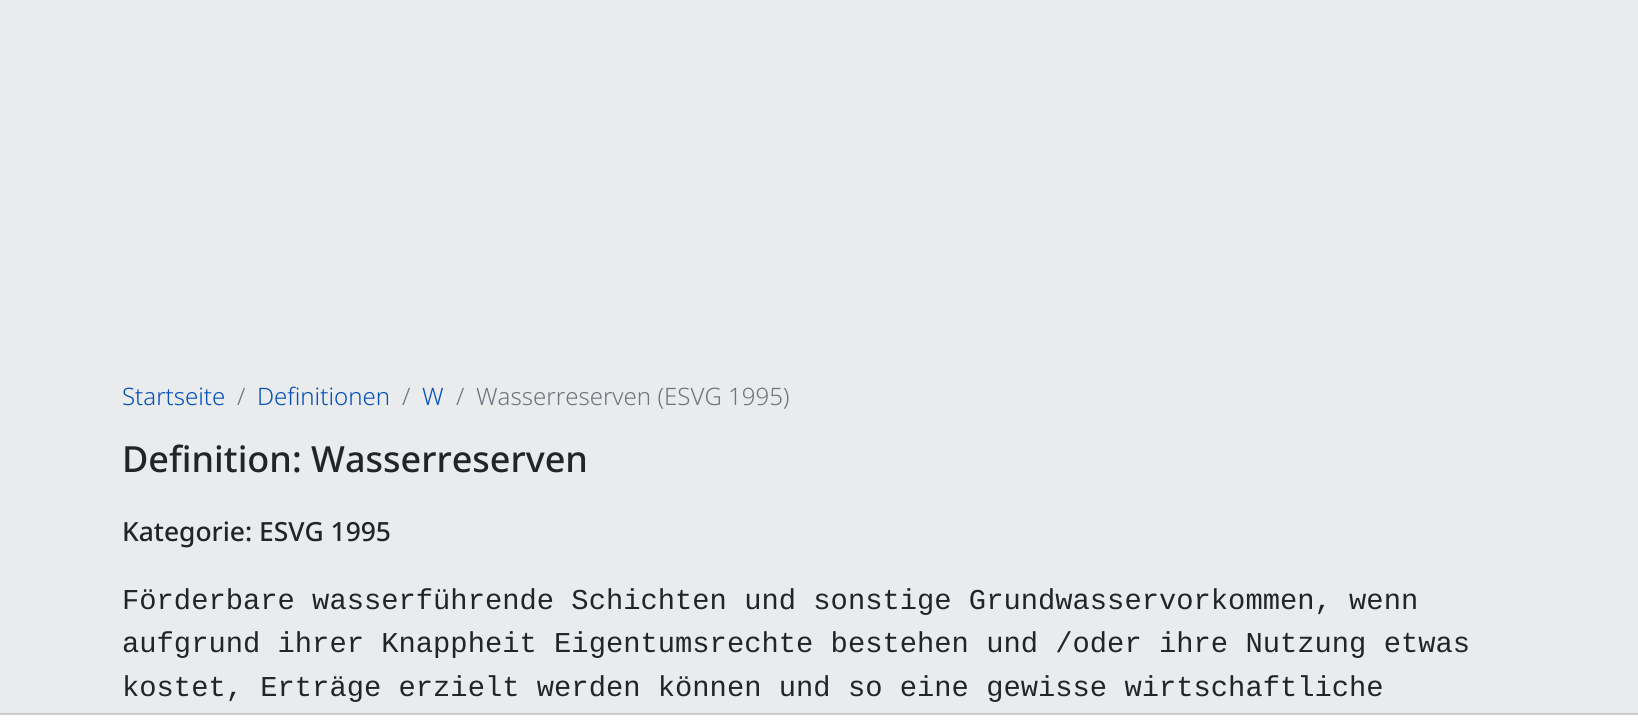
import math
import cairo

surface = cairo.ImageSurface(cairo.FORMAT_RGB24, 1638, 728)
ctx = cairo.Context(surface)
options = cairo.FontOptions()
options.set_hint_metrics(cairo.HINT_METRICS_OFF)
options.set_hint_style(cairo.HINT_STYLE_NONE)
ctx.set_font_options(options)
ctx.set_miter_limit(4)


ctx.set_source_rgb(0.914, 0.918, 0.922)
ctx.paint()
ctx.select_font_face("Noto Sans Light")
ctx.set_font_size(24)
ctx.set_source_rgb(0.008, 0.314, 0.733)
ctx.move_to(122, 405)
ctx.show_text("Startseite")
ctx.set_source_rgb(0.424, 0.459, 0.49)
ctx.move_to(237, 405)
ctx.show_text("/")
ctx.set_source_rgb(0.008, 0.314, 0.733)
ctx.move_to(257, 405)
ctx.show_text("Definitionen")
ctx.set_source_rgb(0.424, 0.459, 0.49)
ctx.move_to(402, 405)
ctx.show_text("/")
ctx.set_source_rgb(0.008, 0.314, 0.733)
ctx.move_to(422, 405)
ctx.show_text("W")
ctx.set_source_rgb(0.424, 0.459, 0.49)
ctx.move_to(456, 405)
ctx.show_text("/")
ctx.move_to(476, 405)
ctx.show_text("Wasserreserven (ESVG 1995)")
ctx.select_font_face("Noto Sans Medium")
ctx.set_font_size(36)
ctx.set_source_rgb(0.129, 0.145, 0.161)
ctx.move_to(122, 472)
ctx.show_text("Definition: Wasserreserven")
ctx.set_font_size(26.4)
ctx.move_to(122, 541)
ctx.show_text("Kategorie: ESVG 1995")
ctx.select_font_face("Liberation Mono")
ctx.set_font_size(28.8)
ctx.move_to(122, 609)
ctx.show_text("Förderbare wasserführende Schichten und sonstige Grundwasservorkommen, wenn")
ctx.move_to(122, 652)
ctx.show_text("aufgrund ihrer Knappheit Eigentumsrechte bestehen und /oder ihre Nutzung etwas")
ctx.move_to(122, 696)
ctx.show_text("kostet, Erträge erzielt werden können und so eine gewisse wirtschaftliche")
ctx.set_source_rgb(1, 1, 1)
ctx.rectangle(0, 715, 1638, 13)
ctx.fill()
ctx.set_source_rgb(0.8, 0.8, 0.8)
ctx.rectangle(0, 713, 1638, 2)
ctx.fill()
surface.write_to_png("page.png")
